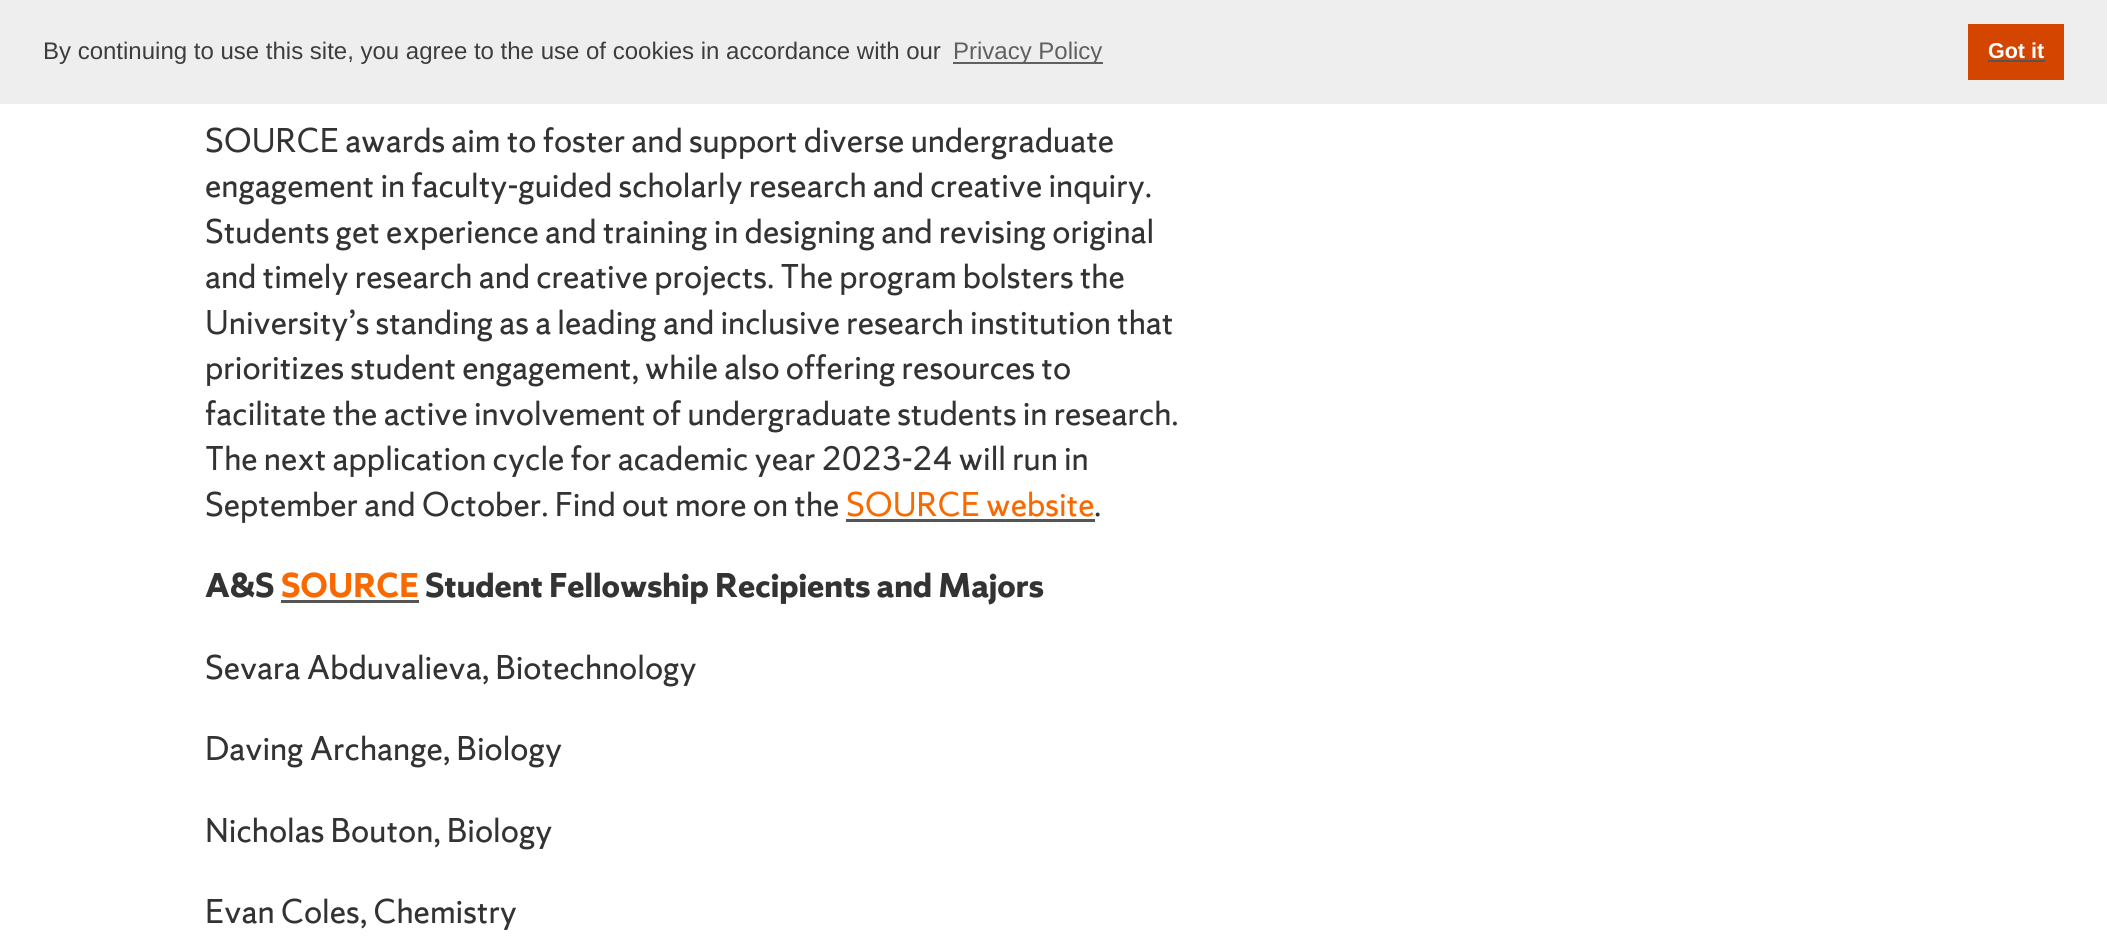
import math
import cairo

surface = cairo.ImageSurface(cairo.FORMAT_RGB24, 2107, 937)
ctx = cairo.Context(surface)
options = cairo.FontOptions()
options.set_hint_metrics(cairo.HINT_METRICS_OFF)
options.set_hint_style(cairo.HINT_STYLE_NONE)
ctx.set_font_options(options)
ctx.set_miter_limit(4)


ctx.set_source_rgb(1, 1, 1)
ctx.paint()
ctx.set_source_rgb(0.933, 0.933, 0.933)
ctx.rectangle(0, 0, 2107, 104)
ctx.fill()
ctx.select_font_face("Liberation Sans")
ctx.set_font_size(24)
ctx.set_source_rgb(0.243, 0.239, 0.235)
ctx.move_to(43, 59)
ctx.show_text("By continuing to use this site, you agree to the use of cookies in accordance with our")
ctx.set_source_rgb(0.38, 0.376, 0.376)
ctx.rectangle(953, 62, 150, 2)
ctx.fill()
ctx.move_to(953, 59)
ctx.show_text("Privacy Policy")
ctx.set_source_rgb(0.831, 0.271, 0)
ctx.rectangle(1968, 24, 96, 56)
ctx.fill()
ctx.select_font_face("Liberation Sans", cairo.FONT_SLANT_NORMAL, cairo.FONT_WEIGHT_BOLD)
ctx.set_font_size(21.5)
ctx.set_source_rgb(1, 1, 1)
ctx.move_to(1988, 58)
ctx.show_text("Got it")
ctx.set_source_rgb(0.333, 0.333, 0.333)
ctx.rectangle(1988, 60, 57, 2)
ctx.fill()
ctx.select_font_face("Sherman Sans")
ctx.set_font_size(30.3)
ctx.set_source_rgb(0.2, 0.2, 0.2)
ctx.move_to(205, 152)
ctx.show_text("SOURCE awards aim to foster and support diverse undergraduate")
ctx.move_to(205, 197)
ctx.show_text("engagement in faculty-guided scholarly research and creative inquiry.")
ctx.move_to(205, 243)
ctx.show_text("Students get experience and training in designing and revising original")
ctx.move_to(205, 288)
ctx.show_text("and timely research and creative projects. The program bolsters the")
ctx.move_to(205, 334)
ctx.show_text("University’s standing as a leading and inclusive research institution that")
ctx.move_to(205, 379)
ctx.show_text("prioritizes student engagement, while also offering resources to")
ctx.move_to(205, 425)
ctx.show_text("facilitate the active involvement of undergraduate students in research.")
ctx.move_to(205, 470)
ctx.show_text("The next application cycle for academic year 2023-24 will run in")
ctx.move_to(205, 516)
ctx.show_text("September and October. Find out more on the")
ctx.set_source_rgb(0.969, 0.412, 0)
ctx.move_to(846, 516)
ctx.show_text("SOURCE website")
ctx.set_source_rgb(0.333, 0.333, 0.333)
ctx.rectangle(846, 519, 249, 3)
ctx.fill()
ctx.set_source_rgb(0.2, 0.2, 0.2)
ctx.move_to(1094, 516)
ctx.show_text(".")
ctx.select_font_face("Sherman Sans", cairo.FONT_SLANT_NORMAL, cairo.FONT_WEIGHT_BOLD)
ctx.move_to(205, 597)
ctx.show_text("A&S")
ctx.set_source_rgb(0.969, 0.412, 0)
ctx.move_to(281, 597)
ctx.show_text("SOURCE")
ctx.set_source_rgb(0.333, 0.333, 0.333)
ctx.rectangle(281, 600, 138, 3)
ctx.fill()
ctx.set_source_rgb(0.2, 0.2, 0.2)
ctx.move_to(425, 597)
ctx.show_text("Student Fellowship Recipients and Majors")
ctx.select_font_face("Sherman Sans")
ctx.move_to(205, 679)
ctx.show_text("Sevara Abduvalieva, Biotechnology")
ctx.move_to(205, 760)
ctx.show_text("Daving Archange, Biology")
ctx.move_to(205, 842)
ctx.show_text("Nicholas Bouton, Biology")
ctx.move_to(205, 923)
ctx.show_text("Evan Coles, Chemistry")
surface.write_to_png("page.png")
